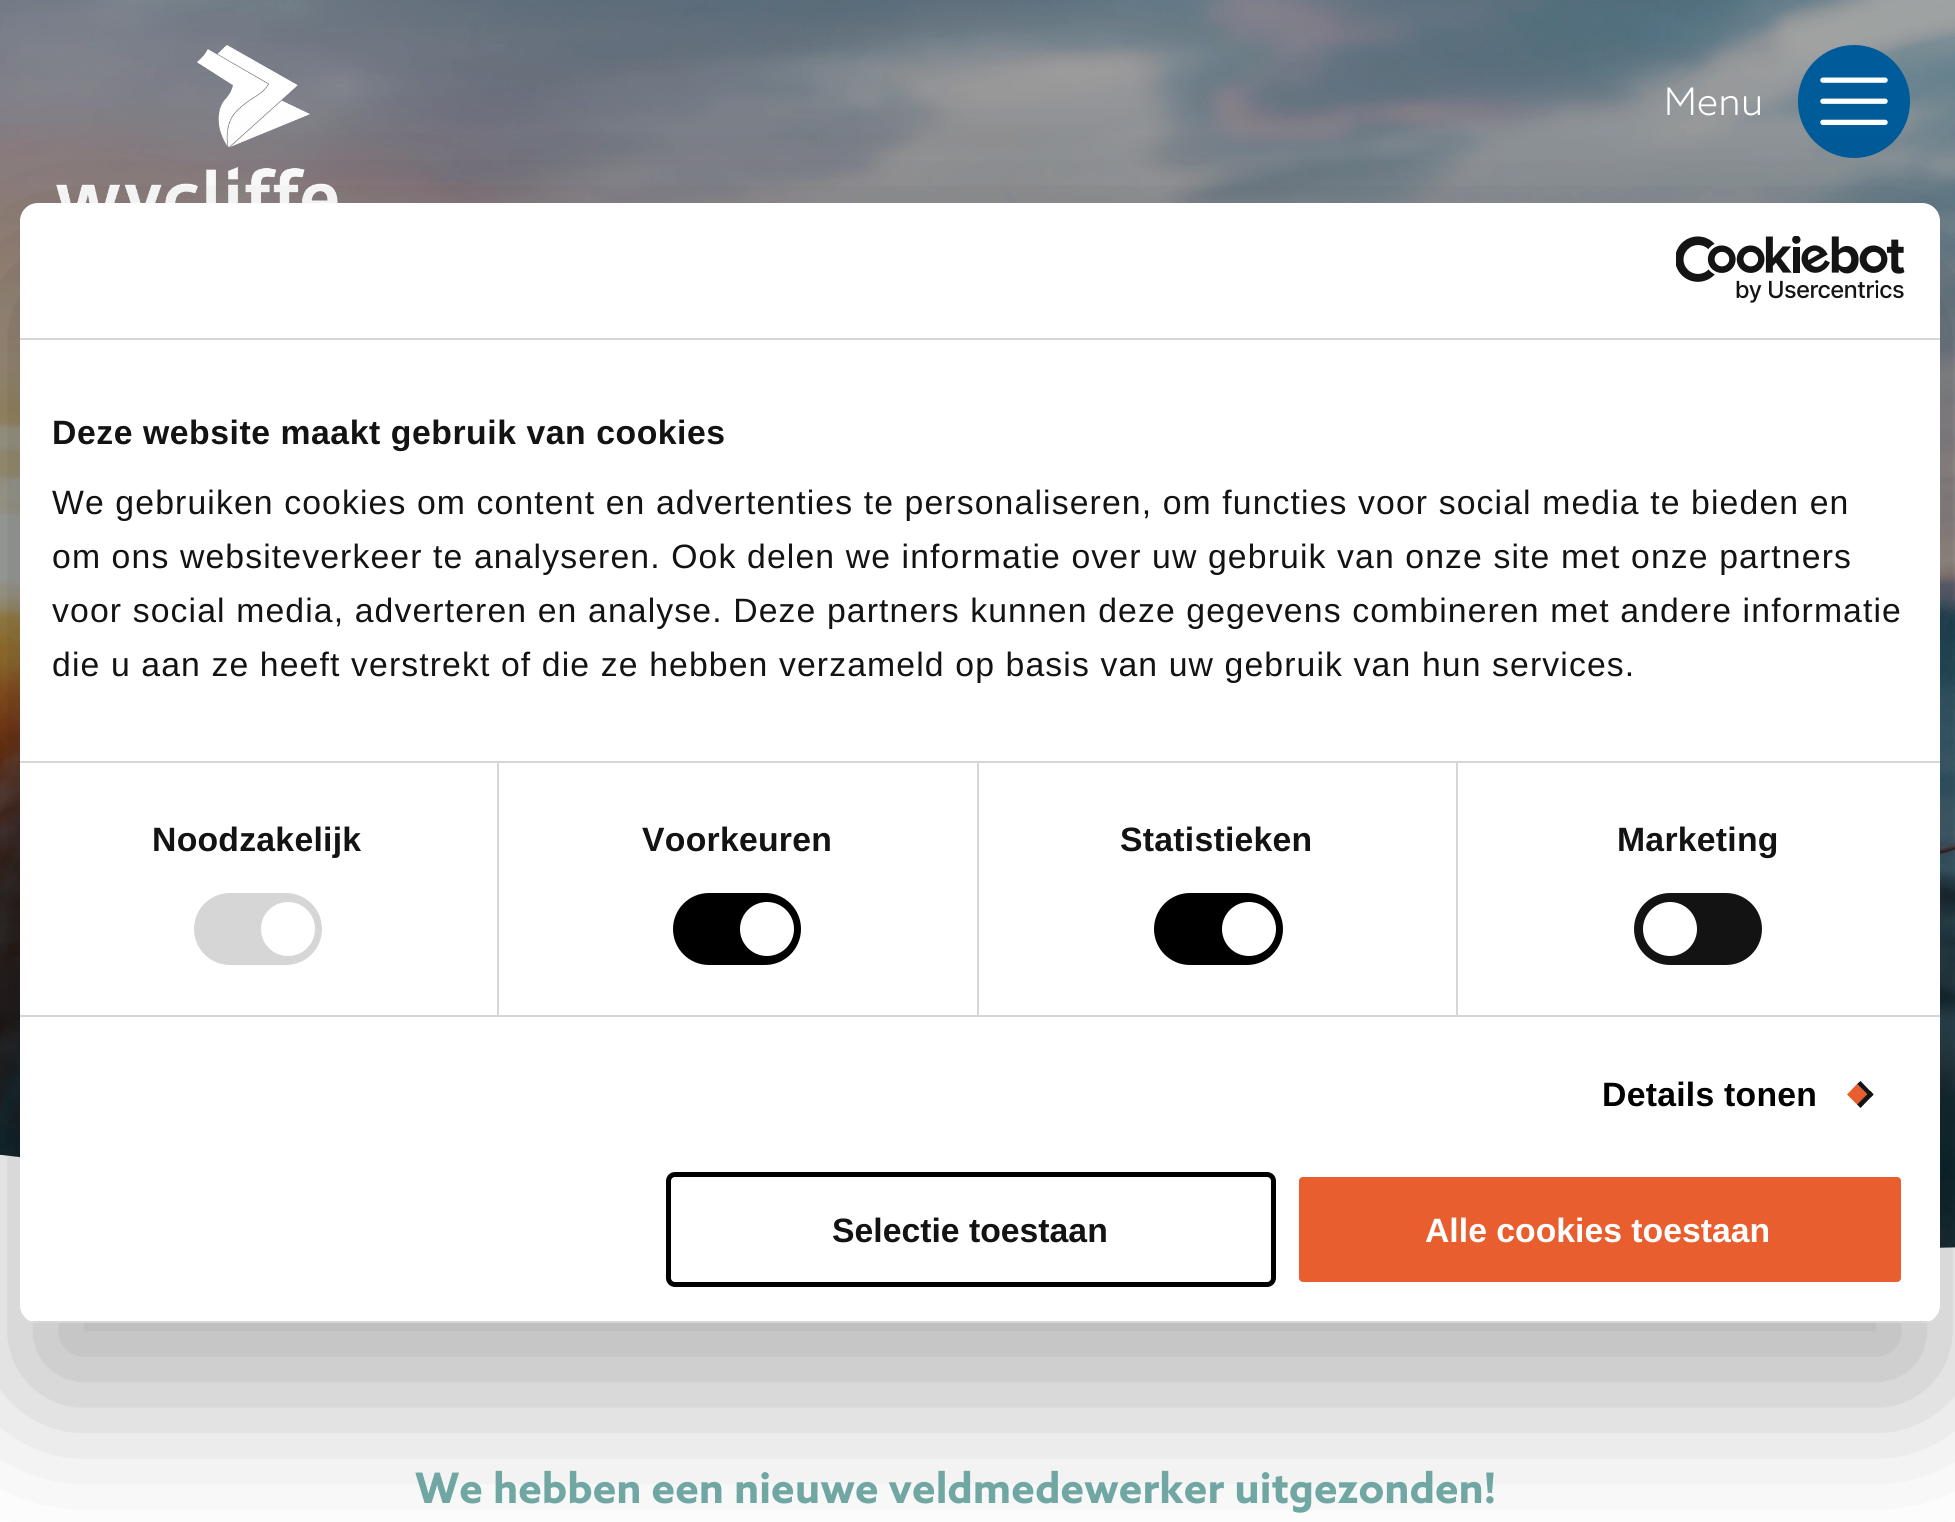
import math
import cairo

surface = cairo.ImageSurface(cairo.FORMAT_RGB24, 1955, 1522)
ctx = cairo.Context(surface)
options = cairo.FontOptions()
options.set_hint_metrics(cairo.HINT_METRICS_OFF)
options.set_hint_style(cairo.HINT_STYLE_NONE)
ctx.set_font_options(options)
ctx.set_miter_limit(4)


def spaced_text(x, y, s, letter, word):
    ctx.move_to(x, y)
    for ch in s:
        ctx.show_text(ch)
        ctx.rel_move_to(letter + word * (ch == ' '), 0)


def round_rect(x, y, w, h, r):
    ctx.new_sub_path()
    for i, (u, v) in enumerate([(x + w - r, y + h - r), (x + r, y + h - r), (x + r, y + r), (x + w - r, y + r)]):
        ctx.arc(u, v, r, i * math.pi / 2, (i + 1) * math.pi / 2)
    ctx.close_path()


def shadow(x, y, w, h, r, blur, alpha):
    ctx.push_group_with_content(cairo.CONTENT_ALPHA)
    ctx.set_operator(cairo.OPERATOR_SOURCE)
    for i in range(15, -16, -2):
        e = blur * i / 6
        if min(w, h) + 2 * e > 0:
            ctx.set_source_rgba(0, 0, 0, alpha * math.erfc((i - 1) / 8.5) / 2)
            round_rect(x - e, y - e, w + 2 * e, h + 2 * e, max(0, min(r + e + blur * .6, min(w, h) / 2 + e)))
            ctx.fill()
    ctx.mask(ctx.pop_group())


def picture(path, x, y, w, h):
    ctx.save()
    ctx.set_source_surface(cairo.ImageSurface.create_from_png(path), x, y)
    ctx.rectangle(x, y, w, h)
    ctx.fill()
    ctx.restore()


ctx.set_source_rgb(1, 1, 1)
ctx.paint()
picture("img4.png", 0, 0, 1955, 1248)
picture("img1.png", 56, 45, 282, 158)
ctx.select_font_face("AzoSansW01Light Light")
ctx.set_font_size(38)
ctx.set_source_rgb(1, 1, 1)
ctx.move_to(1664, 115)
ctx.show_text("Menu")
ctx.set_source_rgb(0, 0.357, 0.604)
round_rect(1798, 45, 112, 113, 56)
ctx.fill()
picture("img2.png", 1820, 77, 68, 48)
ctx.set_source_rgb(1, 1, 1)
ctx.new_path()
ctx.move_to(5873, 1350)
ctx.line_to(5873, 564)
ctx.curve_to(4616, 1002, 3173, 1251, 1637, 1251)
ctx.curve_to(-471, 1251, -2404, 782, -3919, 0)
ctx.line_to(-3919, 1350)
ctx.close_path()
ctx.fill()
ctx.set_source_rgb(0, 0, 0)
shadow(20, 275, 1920, 1120, 18, 76.5, 0.3)
ctx.set_source_rgb(1, 1, 1)
round_rect(20, 203, 1920, 1120, 18)
ctx.fill()
ctx.set_source_rgb(0.839, 0.839, 0.839)
ctx.rectangle(20, 338, 1920, 2)
ctx.fill()
picture("img3.png", 1676, 236, 229, 67)
ctx.rectangle(20, 761, 1920, 2)
ctx.fill()
ctx.select_font_face("Liberation Sans", cairo.FONT_SLANT_NORMAL, cairo.FONT_WEIGHT_BOLD)
ctx.set_font_size(33.75)
ctx.set_source_rgb(0.078, 0.078, 0.078)
spaced_text(52, 444, "Deze website maakt gebruik van cookies", 0.55, 0)
ctx.select_font_face("Liberation Sans")
spaced_text(52, 514, "We gebruiken cookies om content en advertenties te personaliseren, om functies voor social media te bieden en", 1.12, 0)
spaced_text(52, 568, "om ons websiteverkeer te analyseren. Ook delen we informatie over uw gebruik van onze site met onze partners", 1.12, 0)
spaced_text(52, 622, "voor social media, adverteren en analyse. Deze partners kunnen deze gegevens combineren met andere informatie", 1.12, 0)
spaced_text(52, 676, "die u aan ze heeft verstrekt of die ze hebben verzameld op basis van uw gebruik van hun services.", 1.12, 0)
ctx.set_source_rgb(0.839, 0.839, 0.839)
ctx.rectangle(20, 1015, 1920, 2)
ctx.fill()
ctx.rectangle(497, 763, 2, 252)
ctx.fill()
ctx.select_font_face("Liberation Sans", cairo.FONT_SLANT_NORMAL, cairo.FONT_WEIGHT_BOLD)
ctx.set_source_rgb(0.078, 0.078, 0.078)
spaced_text(152, 851, "Noodzakelijk", 0.25, 0)
ctx.set_source_rgb(0.839, 0.839, 0.839)
round_rect(194, 893, 128, 72, 36)
ctx.fill()
ctx.set_source_rgb(1, 1, 1)
ctx.arc(288, 929, 27, 0, 2 * math.pi)
ctx.fill()
ctx.set_source_rgb(0.839, 0.839, 0.839)
ctx.rectangle(977, 763, 2, 252)
ctx.fill()
ctx.set_source_rgb(0.078, 0.078, 0.078)
spaced_text(642, 851, "Voorkeuren", 0.25, 0)
ctx.set_source_rgb(0, 0, 0)
round_rect(673, 893, 128, 72, 36)
ctx.fill()
ctx.set_source_rgb(1, 1, 1)
ctx.arc(767, 929, 27, 0, 2 * math.pi)
ctx.fill()
ctx.set_source_rgb(0.839, 0.839, 0.839)
ctx.rectangle(1456, 763, 2, 252)
ctx.fill()
ctx.set_source_rgb(0.078, 0.078, 0.078)
spaced_text(1120, 851, "Statistieken", 0.25, 0)
ctx.set_source_rgb(0, 0, 0)
round_rect(1154, 893, 129, 72, 36)
ctx.fill()
ctx.set_source_rgb(1, 1, 1)
ctx.arc(1249, 929, 27, 0, 2 * math.pi)
ctx.fill()
ctx.set_source_rgb(0.078, 0.078, 0.078)
spaced_text(1617, 851, "Marketing", 0.25, 0)
round_rect(1634, 893, 128, 72, 36)
ctx.fill()
ctx.set_source_rgb(1, 1, 1)
ctx.arc(1670, 929, 27, 0, 2 * math.pi)
ctx.fill()
ctx.set_source_rgb(0, 0, 0)
spaced_text(1602, 1106, "Details tonen", 0.25, 0)
ctx.set_source_rgb(0.914, 0.369, 0.18)
ctx.new_path()
ctx.move_to(1857, 1084)
ctx.line_to(1867.5, 1094.5)
ctx.line_to(1857, 1104.5)
ctx.line_to(1847, 1094.5)
ctx.close_path()
ctx.fill()
ctx.set_source_rgb(0.078, 0.078, 0.078)
ctx.new_path()
ctx.move_to(1860.5, 1081)
ctx.line_to(1873.5, 1094.5)
ctx.line_to(1870.5, 1097.5)
ctx.line_to(1857, 1084)
ctx.close_path()
ctx.fill()
ctx.new_path()
ctx.move_to(1870.5, 1091)
ctx.line_to(1873.5, 1094.5)
ctx.line_to(1860.5, 1108)
ctx.line_to(1857, 1104.5)
ctx.close_path()
ctx.fill()
ctx.save()
round_rect(20, 203, 1920, 1120, 18)
ctx.clip()
ctx.set_source_rgb(0.839, 0.839, 0.839)
ctx.rectangle(30, 1321, 1900, 2)
ctx.fill()
ctx.restore()
round_rect(668.5, 1174.5, 605, 110, 6.5)
ctx.set_source_rgb(0, 0, 0)
ctx.set_line_width(5)
ctx.stroke()
ctx.set_source_rgb(0.078, 0.078, 0.078)
ctx.move_to(832, 1242)
ctx.show_text("Selectie toestaan")
ctx.set_source_rgb(0.914, 0.369, 0.18)
round_rect(1296.5, 1174.5, 607, 110, 6.5)
ctx.fill_preserve()
ctx.set_source_rgb(1, 1, 1)
ctx.stroke()
ctx.move_to(1425, 1242)
ctx.show_text("Alle cookies toestaan")
ctx.select_font_face("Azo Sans", cairo.FONT_SLANT_NORMAL, cairo.FONT_WEIGHT_BOLD)
ctx.set_font_size(42.1)
ctx.set_source_rgb(0.439, 0.655, 0.639)
ctx.move_to(415, 1503)
ctx.show_text("We hebben een nieuwe veldmedewerker uitgezonden!")
surface.write_to_png("page.png")
